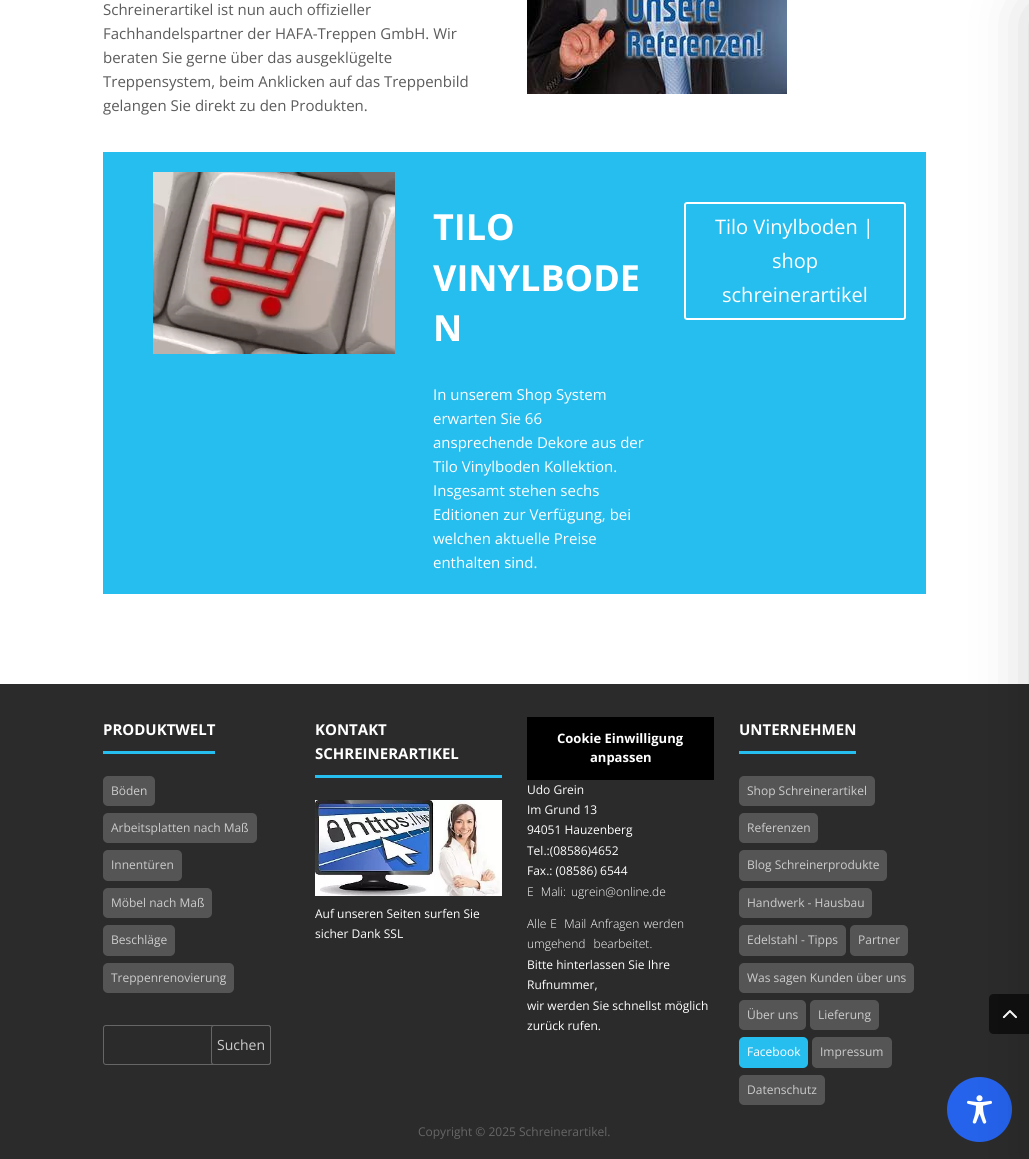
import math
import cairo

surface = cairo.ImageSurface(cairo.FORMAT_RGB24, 1029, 1159)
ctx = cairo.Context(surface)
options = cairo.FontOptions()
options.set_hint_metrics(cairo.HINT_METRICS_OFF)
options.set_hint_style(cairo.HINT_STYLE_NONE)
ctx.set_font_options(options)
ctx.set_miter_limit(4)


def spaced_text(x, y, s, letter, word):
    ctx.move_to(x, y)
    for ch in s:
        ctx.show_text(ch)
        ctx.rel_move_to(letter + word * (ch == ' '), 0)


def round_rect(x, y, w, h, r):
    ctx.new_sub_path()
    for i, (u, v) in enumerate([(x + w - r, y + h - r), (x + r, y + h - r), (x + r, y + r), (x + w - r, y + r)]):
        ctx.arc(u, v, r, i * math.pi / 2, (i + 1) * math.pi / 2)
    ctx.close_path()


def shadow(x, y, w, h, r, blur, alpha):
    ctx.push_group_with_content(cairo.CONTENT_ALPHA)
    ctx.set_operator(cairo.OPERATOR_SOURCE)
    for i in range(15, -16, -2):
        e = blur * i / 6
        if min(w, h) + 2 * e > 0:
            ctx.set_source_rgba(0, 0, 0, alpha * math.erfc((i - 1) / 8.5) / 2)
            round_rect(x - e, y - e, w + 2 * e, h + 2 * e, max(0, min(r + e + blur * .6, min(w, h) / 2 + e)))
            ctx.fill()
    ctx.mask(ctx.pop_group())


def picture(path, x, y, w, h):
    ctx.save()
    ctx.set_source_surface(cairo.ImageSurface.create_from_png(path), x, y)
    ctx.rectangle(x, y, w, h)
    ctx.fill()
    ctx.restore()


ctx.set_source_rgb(1, 1, 1)
ctx.paint()
ctx.select_font_face("Open Sans")
ctx.set_font_size(15)
ctx.set_source_rgb(0.357, 0.357, 0.357)
ctx.move_to(103, 15)
ctx.show_text("Schreinerartikel ist nun auch offizieller")
ctx.move_to(103, 39)
ctx.show_text("Fachhandelspartner der HAFA-Treppen GmbH. Wir")
ctx.move_to(103, 63)
ctx.show_text("beraten Sie gerne über das ausgeklügelte")
ctx.move_to(103, 87)
ctx.show_text("Treppensystem, beim Anklicken auf das Treppenbild")
ctx.move_to(103, 111)
ctx.show_text("gelangen Sie direkt zu den Produkten.")
picture("img1.png", 527, 0, 260, 94)
ctx.set_source_rgb(0.149, 0.741, 0.937)
ctx.rectangle(103, 152, 823, 442)
ctx.fill()
picture("img2.png", 153, 172, 242, 182)
ctx.select_font_face("Open Sans", cairo.FONT_SLANT_NORMAL, cairo.FONT_WEIGHT_BOLD)
ctx.set_font_size(36)
ctx.set_source_rgb(1, 1, 1)
ctx.move_to(433, 240)
ctx.show_text("TILO")
ctx.move_to(433, 291)
ctx.show_text("VINYLBODE")
ctx.move_to(433, 341)
ctx.show_text("N")
ctx.select_font_face("Open Sans")
ctx.set_font_size(15)
ctx.move_to(433, 400)
ctx.show_text("In unserem Shop System")
ctx.move_to(433, 424)
ctx.show_text("erwarten Sie 66")
ctx.move_to(433, 448)
ctx.show_text("ansprechende Dekore aus der")
ctx.move_to(433, 472)
ctx.show_text("Tilo Vinylboden Kollektion.")
ctx.move_to(433, 496)
ctx.show_text("Insgesamt stehen sechs")
ctx.move_to(433, 520)
ctx.show_text("Editionen zur Verfügung, bei")
ctx.move_to(433, 544)
ctx.show_text("welchen aktuelle Preise")
ctx.move_to(433, 568)
ctx.show_text("enthalten sind.")
round_rect(685, 203, 220, 116, 2)
ctx.stroke()
ctx.set_font_size(20)
ctx.move_to(715, 234)
ctx.show_text("Tilo Vinylboden |")
ctx.move_to(772, 268)
ctx.show_text("shop")
ctx.move_to(722, 302)
ctx.show_text("schreinerartikel")
ctx.set_source_rgb(0.169, 0.169, 0.169)
ctx.rectangle(0, 684, 1029, 475)
ctx.fill()
ctx.set_source_rgb(0.149, 0.741, 0.937)
ctx.rectangle(103, 751, 112, 3)
ctx.fill()
ctx.select_font_face("Open Sans", cairo.FONT_SLANT_NORMAL, cairo.FONT_WEIGHT_BOLD)
ctx.set_font_size(15)
ctx.set_source_rgb(1, 1, 1)
ctx.move_to(103, 735)
ctx.show_text("PRODUKTWELT")
ctx.set_source_rgb(0.333, 0.333, 0.333)
round_rect(103, 776, 52, 30, 5)
ctx.fill()
ctx.select_font_face("Open Sans")
ctx.set_font_size(12)
ctx.set_source_rgb(0.8, 0.8, 0.8)
ctx.move_to(111, 795)
ctx.show_text("Böden")
ctx.set_source_rgb(0.333, 0.333, 0.333)
round_rect(103, 813, 154, 30, 5)
ctx.fill()
ctx.set_source_rgb(0.8, 0.8, 0.8)
ctx.move_to(111, 832)
ctx.show_text("Arbeitsplatten nach Maß")
ctx.set_source_rgb(0.333, 0.333, 0.333)
round_rect(103, 850, 79, 31, 5)
ctx.fill()
ctx.set_source_rgb(0.8, 0.8, 0.8)
ctx.move_to(111, 869)
ctx.show_text("Innentüren")
ctx.set_source_rgb(0.333, 0.333, 0.333)
round_rect(103, 888, 109, 30, 5)
ctx.fill()
ctx.set_source_rgb(0.8, 0.8, 0.8)
ctx.move_to(111, 907)
ctx.show_text("Möbel nach Maß")
ctx.set_source_rgb(0.333, 0.333, 0.333)
round_rect(103, 925, 72, 31, 5)
ctx.fill()
ctx.set_source_rgb(0.8, 0.8, 0.8)
ctx.move_to(111, 944)
ctx.show_text("Beschläge")
ctx.set_source_rgb(0.333, 0.333, 0.333)
round_rect(103, 963, 131, 30, 5)
ctx.fill()
ctx.set_source_rgb(0.8, 0.8, 0.8)
ctx.move_to(111, 982)
ctx.show_text("Treppenrenovierung")
round_rect(103.5, 1025.5, 167, 39, 2.5)
ctx.set_source_rgb(0.4, 0.4, 0.4)
ctx.set_line_width(1)
ctx.stroke()
ctx.set_source_rgb(0.169, 0.169, 0.169)
round_rect(211.5, 1025.5, 59, 39, 2.5)
ctx.fill_preserve()
ctx.set_source_rgb(0.4, 0.4, 0.4)
ctx.stroke()
ctx.set_font_size(14)
ctx.set_source_rgb(0.8, 0.8, 0.8)
ctx.move_to(217, 1050)
ctx.show_text("Suchen")
ctx.set_source_rgb(0.149, 0.741, 0.937)
ctx.rectangle(315, 775, 187, 3)
ctx.fill()
ctx.select_font_face("Open Sans", cairo.FONT_SLANT_NORMAL, cairo.FONT_WEIGHT_BOLD)
ctx.set_font_size(15)
ctx.set_source_rgb(1, 1, 1)
ctx.move_to(315, 735)
ctx.show_text("KONTAKT")
ctx.move_to(315, 759)
ctx.show_text("SCHREINERARTIKEL")
picture("img3.png", 315, 800, 187, 96)
ctx.select_font_face("Open Sans")
ctx.set_font_size(12)
ctx.move_to(315, 918)
ctx.show_text("Auf unseren Seiten surfen Sie")
ctx.move_to(315, 938)
ctx.show_text("sicher Dank SSL")
ctx.set_source_rgb(0, 0, 0)
ctx.rectangle(527, 717, 187, 63)
ctx.fill()
ctx.select_font_face("Open Sans", cairo.FONT_SLANT_NORMAL, cairo.FONT_WEIGHT_BOLD)
ctx.set_font_size(13)
ctx.set_source_rgb(1, 1, 1)
ctx.move_to(557, 743)
ctx.show_text("Cookie Einwilligung")
ctx.move_to(590, 762)
ctx.show_text("anpassen")
ctx.select_font_face("Open Sans")
ctx.set_font_size(12)
ctx.move_to(527, 794)
ctx.show_text("Udo Grein")
ctx.move_to(527, 814)
ctx.show_text("Im Grund 13")
ctx.move_to(527, 834)
ctx.show_text("94051 Hauzenberg")
ctx.move_to(527, 855)
ctx.show_text("Tel.:(08586)4652")
ctx.move_to(527, 875)
ctx.show_text("Fax.: (08586) 6544")
ctx.select_font_face("Open Sans Light")
spaced_text(527, 896, "E‑Mali: ugrein@online.de", 0, 2)
spaced_text(527, 928, "Alle E‑Mail Anfragen werden", 0, 1)
spaced_text(527, 948, "umgehend bearbeitet.", 0, 5)
ctx.select_font_face("Open Sans")
ctx.move_to(527, 969)
ctx.show_text("Bitte hinterlassen Sie Ihre")
ctx.move_to(527, 989)
ctx.show_text("Rufnummer,")
ctx.move_to(527, 1010)
ctx.show_text("wir werden Sie schnellst möglich")
ctx.move_to(527, 1030)
ctx.show_text("zurück rufen.")
ctx.set_source_rgb(0.149, 0.741, 0.937)
ctx.rectangle(739, 751, 117, 3)
ctx.fill()
ctx.select_font_face("Open Sans", cairo.FONT_SLANT_NORMAL, cairo.FONT_WEIGHT_BOLD)
ctx.set_font_size(15)
ctx.set_source_rgb(1, 1, 1)
ctx.move_to(739, 735)
ctx.show_text("UNTERNEHMEN")
ctx.set_source_rgb(0.333, 0.333, 0.333)
round_rect(739, 776, 136, 30, 5)
ctx.fill()
ctx.select_font_face("Open Sans")
ctx.set_font_size(12)
ctx.set_source_rgb(0.8, 0.8, 0.8)
ctx.move_to(747, 795)
ctx.show_text("Shop Schreinerartikel")
ctx.set_source_rgb(0.333, 0.333, 0.333)
round_rect(739, 813, 79, 30, 5)
ctx.fill()
ctx.set_source_rgb(0.8, 0.8, 0.8)
ctx.move_to(747, 832)
ctx.show_text("Referenzen")
ctx.set_source_rgb(0.333, 0.333, 0.333)
round_rect(739, 850, 148, 31, 5)
ctx.fill()
ctx.set_source_rgb(0.8, 0.8, 0.8)
ctx.move_to(747, 869)
ctx.show_text("Blog Schreinerprodukte")
ctx.set_source_rgb(0.333, 0.333, 0.333)
round_rect(739, 888, 133, 30, 5)
ctx.fill()
ctx.set_source_rgb(0.8, 0.8, 0.8)
ctx.move_to(747, 907)
ctx.show_text("Handwerk - Hausbau")
ctx.set_source_rgb(0.333, 0.333, 0.333)
round_rect(739, 925, 107, 31, 5)
ctx.fill()
ctx.set_source_rgb(0.8, 0.8, 0.8)
ctx.move_to(747, 944)
ctx.show_text("Edelstahl - Tipps")
ctx.set_source_rgb(0.333, 0.333, 0.333)
round_rect(850, 925, 58, 31, 5)
ctx.fill()
ctx.set_source_rgb(0.8, 0.8, 0.8)
ctx.move_to(858, 944)
ctx.show_text("Partner")
ctx.set_source_rgb(0.333, 0.333, 0.333)
round_rect(739, 963, 175, 30, 5)
ctx.fill()
ctx.set_source_rgb(0.8, 0.8, 0.8)
ctx.move_to(747, 982)
ctx.show_text("Was sagen Kunden über uns")
ctx.set_source_rgb(0.333, 0.333, 0.333)
round_rect(739, 1000, 67, 30, 5)
ctx.fill()
ctx.set_source_rgb(0.8, 0.8, 0.8)
ctx.move_to(747, 1019)
ctx.show_text("Über uns")
ctx.set_source_rgb(0.333, 0.333, 0.333)
round_rect(810, 1000, 69, 30, 5)
ctx.fill()
ctx.set_source_rgb(0.8, 0.8, 0.8)
ctx.move_to(818, 1019)
ctx.show_text("Lieferung")
ctx.set_source_rgb(0.149, 0.741, 0.937)
round_rect(739, 1037, 69, 31, 5)
ctx.fill()
ctx.set_source_rgb(1, 1, 1)
ctx.move_to(747, 1056)
ctx.show_text("Facebook")
ctx.set_source_rgb(0.333, 0.333, 0.333)
round_rect(812, 1037, 80, 31, 5)
ctx.fill()
ctx.set_source_rgb(0.8, 0.8, 0.8)
ctx.move_to(820, 1056)
ctx.show_text("Impressum")
ctx.set_source_rgb(0.333, 0.333, 0.333)
round_rect(739, 1075, 86, 30, 5)
ctx.fill()
ctx.set_source_rgb(0.8, 0.8, 0.8)
ctx.move_to(747, 1094)
ctx.show_text("Datenschutz")
ctx.set_source_rgb(0.4, 0.4, 0.4)
ctx.move_to(418, 1136)
ctx.show_text("Copyright © 2025 Schreinerartikel.")
ctx.set_source_rgb(0.102, 0.102, 0.102)
ctx.new_path()
ctx.move_to(994, 994)
ctx.line_to(1029, 994)
ctx.line_to(1029, 1034)
ctx.line_to(994, 1034)
ctx.curve_to(991, 1034, 989, 1032, 989, 1029)
ctx.line_to(989, 999)
ctx.curve_to(989, 996, 991, 994, 994, 994)
ctx.close_path()
ctx.fill()
picture("img4.png", 1002, 1010, 15, 9)
ctx.set_source_rgba(0, 0, 0, 0.4)
ctx.new_path()
ctx.move_to(994, 994)
ctx.line_to(1029, 994)
ctx.line_to(1029, 1034)
ctx.line_to(994, 1034)
ctx.curve_to(991, 1034, 989, 1032, 989, 1029)
ctx.line_to(989, 999)
ctx.curve_to(989, 996, 991, 994, 994, 994)
ctx.close_path()
ctx.fill()
picture("img5.png", 1002, 1010, 15, 9)
ctx.set_source_rgb(0.145, 0.388, 0.922)
ctx.arc(979.5, 1109.5, 32.5, 0, 2 * math.pi)
ctx.fill()
picture("img6.png", 967, 1095, 25, 29)
ctx.set_source_rgb(0, 0, 0)
shadow(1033, 10, 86, 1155, 0, 30, 0.2)
surface.write_to_png("page.png")
